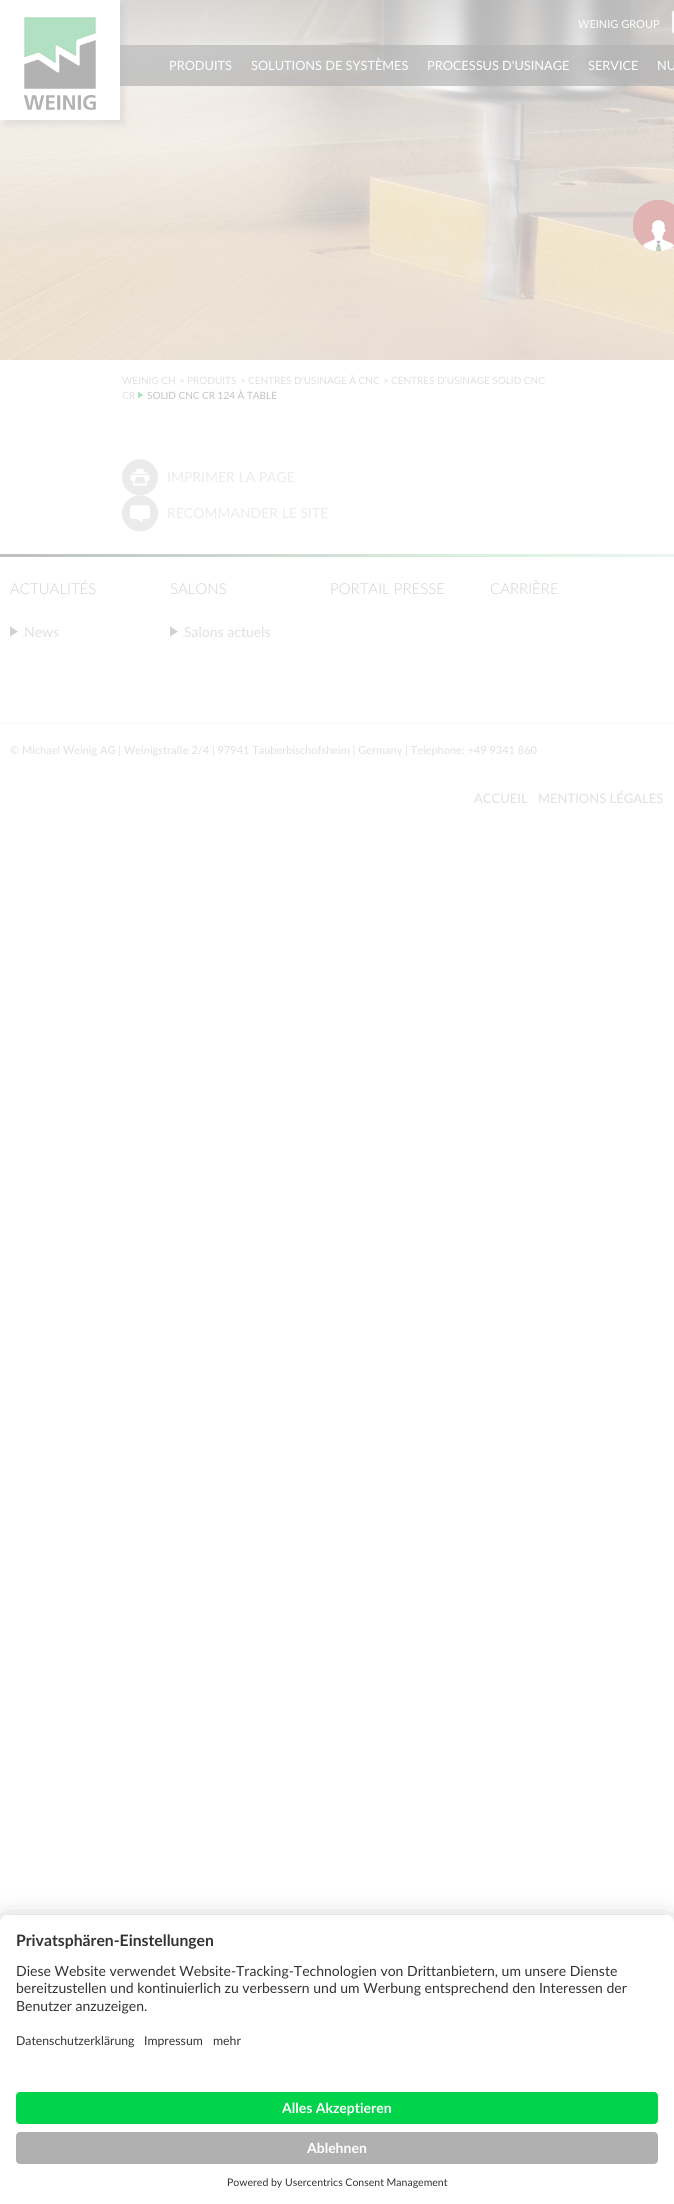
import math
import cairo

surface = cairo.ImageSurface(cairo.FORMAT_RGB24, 674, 2204)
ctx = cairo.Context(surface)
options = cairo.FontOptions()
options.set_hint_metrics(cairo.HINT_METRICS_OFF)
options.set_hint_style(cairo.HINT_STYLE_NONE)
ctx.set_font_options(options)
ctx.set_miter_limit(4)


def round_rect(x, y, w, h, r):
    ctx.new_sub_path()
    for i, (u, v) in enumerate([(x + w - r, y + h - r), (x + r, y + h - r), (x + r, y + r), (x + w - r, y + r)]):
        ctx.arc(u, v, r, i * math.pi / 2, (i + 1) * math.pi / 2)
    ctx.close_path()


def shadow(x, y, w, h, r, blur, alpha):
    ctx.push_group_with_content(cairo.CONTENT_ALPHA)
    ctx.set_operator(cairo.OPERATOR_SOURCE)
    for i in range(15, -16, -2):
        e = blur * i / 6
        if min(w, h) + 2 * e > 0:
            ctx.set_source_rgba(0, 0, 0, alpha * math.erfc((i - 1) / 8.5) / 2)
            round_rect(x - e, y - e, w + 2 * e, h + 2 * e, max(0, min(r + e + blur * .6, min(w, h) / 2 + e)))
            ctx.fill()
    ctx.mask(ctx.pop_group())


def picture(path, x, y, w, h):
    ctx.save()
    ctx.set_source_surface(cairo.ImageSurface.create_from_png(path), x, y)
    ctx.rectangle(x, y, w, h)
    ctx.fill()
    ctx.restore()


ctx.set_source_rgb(1, 1, 1)
ctx.paint()
picture("img1.png", 0, 0, 674, 360)
ctx.select_font_face("Lato")
ctx.set_font_size(11)
ctx.set_source_rgb(1, 1, 1)
ctx.move_to(578, 28)
ctx.show_text("WEINIG GROUP")
ctx.new_path()
ctx.move_to(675, 11)
ctx.line_to(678, 11)
ctx.line_to(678, 33)
ctx.line_to(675, 33)
ctx.curve_to(674, 33, 673, 32, 673, 31)
ctx.line_to(673, 13)
ctx.curve_to(673, 12, 674, 11, 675, 11)
ctx.close_path()
ctx.set_source_rgb(0.969, 0.969, 0.969)
ctx.stroke()
ctx.set_source_rgba(0.702, 0.702, 0.702, 0.7)
ctx.rectangle(120, 45, 554, 41)
ctx.fill()
ctx.set_source_rgb(0.702, 0.702, 0.702)
shadow(5, 5, 120, 120, 0, 2.5, 0.25)
ctx.set_source_rgb(1, 1, 1)
ctx.rectangle(0, 0, 120, 120)
ctx.fill()
picture("img2.png", 23, 17, 73, 93)
ctx.set_font_size(12.75)
ctx.move_to(169, 70)
ctx.show_text("PRODUITS")
ctx.move_to(251, 70)
ctx.show_text("SOLUTIONS DE SYSTÈMES")
ctx.move_to(427, 70)
ctx.show_text("PROCESSUS D'USINAGE")
ctx.move_to(588, 70)
ctx.show_text("SERVICE")
ctx.move_to(657, 70)
ctx.show_text("NU")
picture("img3.png", 633, 200, 41, 51)
ctx.set_font_size(10)
ctx.set_source_rgb(0.878, 0.878, 0.878)
ctx.move_to(122, 384)
ctx.show_text("WEINIG CH")
ctx.move_to(179, 384)
ctx.show_text(">")
ctx.move_to(187, 384)
ctx.show_text("PRODUITS")
ctx.move_to(240, 384)
ctx.show_text(">")
ctx.move_to(248, 384)
ctx.show_text("CENTRES D'USINAGE À CNC")
ctx.move_to(383, 384)
ctx.show_text(">")
ctx.move_to(391, 384)
ctx.show_text("CENTRES D'USINAGE SOLID CNC")
ctx.move_to(122, 399)
ctx.show_text("CR")
ctx.set_source_rgb(0.702, 0.878, 0.761)
ctx.new_path()
ctx.move_to(138, 391.5)
ctx.line_to(138, 398.5)
ctx.line_to(143.5, 395)
ctx.close_path()
ctx.fill()
ctx.set_source_rgb(0.761, 0.761, 0.761)
ctx.move_to(147, 399)
ctx.show_text("SOLID CNC CR 124 À TABLE")
picture("img4.png", 122, 459, 36, 36)
ctx.set_font_size(14)
ctx.set_source_rgb(0.922, 0.922, 0.922)
ctx.move_to(167, 482)
ctx.show_text("IMPRIMER LA PAGE")
picture("img5.png", 122, 495, 36, 37)
ctx.move_to(167, 518)
ctx.show_text("RECOMMANDER LE SITE")
gradient = cairo.LinearGradient(0, 556, 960, 556)
gradient.add_color_stop_rgba(0, 0.741, 0.753, 0.737, 1)
gradient.add_color_stop_rgba(0.5, 0.859, 0.941, 0.89, 1)
gradient.add_color_stop_rgba(1, 1, 1, 1, 1)
ctx.set_source(gradient)
ctx.rectangle(0, 554, 674, 3)
ctx.fill()
ctx.select_font_face("Lato Light")
ctx.set_font_size(15)
ctx.set_source_rgb(0.82, 0.82, 0.82)
ctx.move_to(10, 594)
ctx.show_text("ACTUALITÉS")
ctx.new_path()
ctx.move_to(10, 626.5)
ctx.line_to(10, 636.5)
ctx.line_to(18, 631.5)
ctx.close_path()
ctx.fill()
ctx.select_font_face("Lato")
ctx.set_font_size(14)
ctx.set_source_rgb(0.878, 0.878, 0.878)
ctx.move_to(24, 637)
ctx.show_text("News")
ctx.select_font_face("Lato Light")
ctx.set_font_size(15)
ctx.set_source_rgb(0.82, 0.82, 0.82)
ctx.move_to(170, 594)
ctx.show_text("SALONS")
ctx.new_path()
ctx.move_to(170, 626.5)
ctx.line_to(170, 636.5)
ctx.line_to(178, 631.5)
ctx.close_path()
ctx.fill()
ctx.select_font_face("Lato")
ctx.set_font_size(14)
ctx.set_source_rgb(0.878, 0.878, 0.878)
ctx.move_to(184, 637)
ctx.show_text("Salons actuels")
ctx.select_font_face("Lato Light")
ctx.set_font_size(15)
ctx.set_source_rgb(0.82, 0.82, 0.82)
ctx.move_to(330, 594)
ctx.show_text("PORTAIL PRESSE")
ctx.move_to(490, 594)
ctx.show_text("CARRIÈRE")
ctx.set_source_rgb(0.984, 0.984, 0.984)
ctx.rectangle(0, 722, 674, 2)
ctx.fill()
ctx.select_font_face("Lato")
ctx.set_font_size(11)
ctx.set_source_rgb(0.878, 0.878, 0.878)
ctx.move_to(10, 754)
ctx.show_text("© Michael Weinig AG | Weinigstraße 2/4 | 97941 Tauberbischofsheim | Germany | Telephone: +49 9341 860")
ctx.set_font_size(13)
ctx.move_to(474, 803)
ctx.show_text("ACCUEIL")
ctx.move_to(538, 803)
ctx.show_text("MENTIONS LÉGALES")
ctx.set_source_rgb(0, 0, 0)
shadow(0, 1935, 674, 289, 8, 14, 0.3)
shadow(0, 1920, 674, 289, 8, 13, 0.22)
ctx.set_source_rgb(1, 1, 1)
ctx.new_path()
ctx.move_to(8, 1915)
ctx.line_to(666, 1915)
ctx.curve_to(670.5, 1915, 674, 1918.5, 674, 1923)
ctx.line_to(674, 2204)
ctx.line_to(0, 2204)
ctx.line_to(0, 1923)
ctx.curve_to(0, 1918.5, 3.5, 1915, 8, 1915)
ctx.close_path()
ctx.fill()
ctx.new_path()
ctx.move_to(8, 1915)
ctx.line_to(666, 1915)
ctx.curve_to(670.5, 1915, 674, 1918.5, 674, 1923)
ctx.line_to(674, 2080)
ctx.line_to(0, 2080)
ctx.line_to(0, 1923)
ctx.curve_to(0, 1918.5, 3.5, 1915, 8, 1915)
ctx.close_path()
ctx.fill()
ctx.select_font_face("Lato", cairo.FONT_SLANT_NORMAL, cairo.FONT_WEIGHT_BOLD)
ctx.set_font_size(15.75)
ctx.set_source_rgb(0.2, 0.2, 0.2)
ctx.move_to(16, 1946)
ctx.show_text("Privatsphären-Einstellungen")
ctx.select_font_face("Lato")
ctx.set_font_size(14)
ctx.move_to(16, 1976)
ctx.show_text("Diese Website verwendet Website-Tracking-Technologien von Drittanbietern, um unsere Dienste")
ctx.move_to(16, 1993)
ctx.show_text("bereitzustellen und kontinuierlich zu verbessern und um Werbung entsprechend den Interessen der")
ctx.move_to(16, 2011)
ctx.show_text("Benutzer anzuzeigen.")
ctx.set_font_size(12.25)
ctx.move_to(16, 2045)
ctx.show_text("Datenschutzerklärung")
ctx.move_to(144, 2045)
ctx.show_text("Impressum")
ctx.move_to(213, 2045)
ctx.show_text("mehr")
ctx.set_source_rgb(0, 0.831, 0.29)
round_rect(16, 2092, 642, 32, 4)
ctx.fill()
ctx.select_font_face("Lato", cairo.FONT_SLANT_NORMAL, cairo.FONT_WEIGHT_BOLD)
ctx.set_font_size(14)
ctx.set_source_rgb(1, 1, 1)
ctx.move_to(282, 2113)
ctx.show_text("Alles Akzeptieren")
ctx.set_source_rgb(0.69, 0.69, 0.69)
round_rect(16, 2132, 642, 32, 4)
ctx.fill()
ctx.set_source_rgb(1, 1, 1)
ctx.move_to(307, 2153)
ctx.show_text("Ablehnen")
ctx.select_font_face("Lato")
ctx.set_font_size(10.5)
ctx.set_source_rgb(0.2, 0.2, 0.2)
ctx.move_to(227, 2186)
ctx.show_text("Powered by Usercentrics Consent Management")
surface.write_to_png("page.png")
